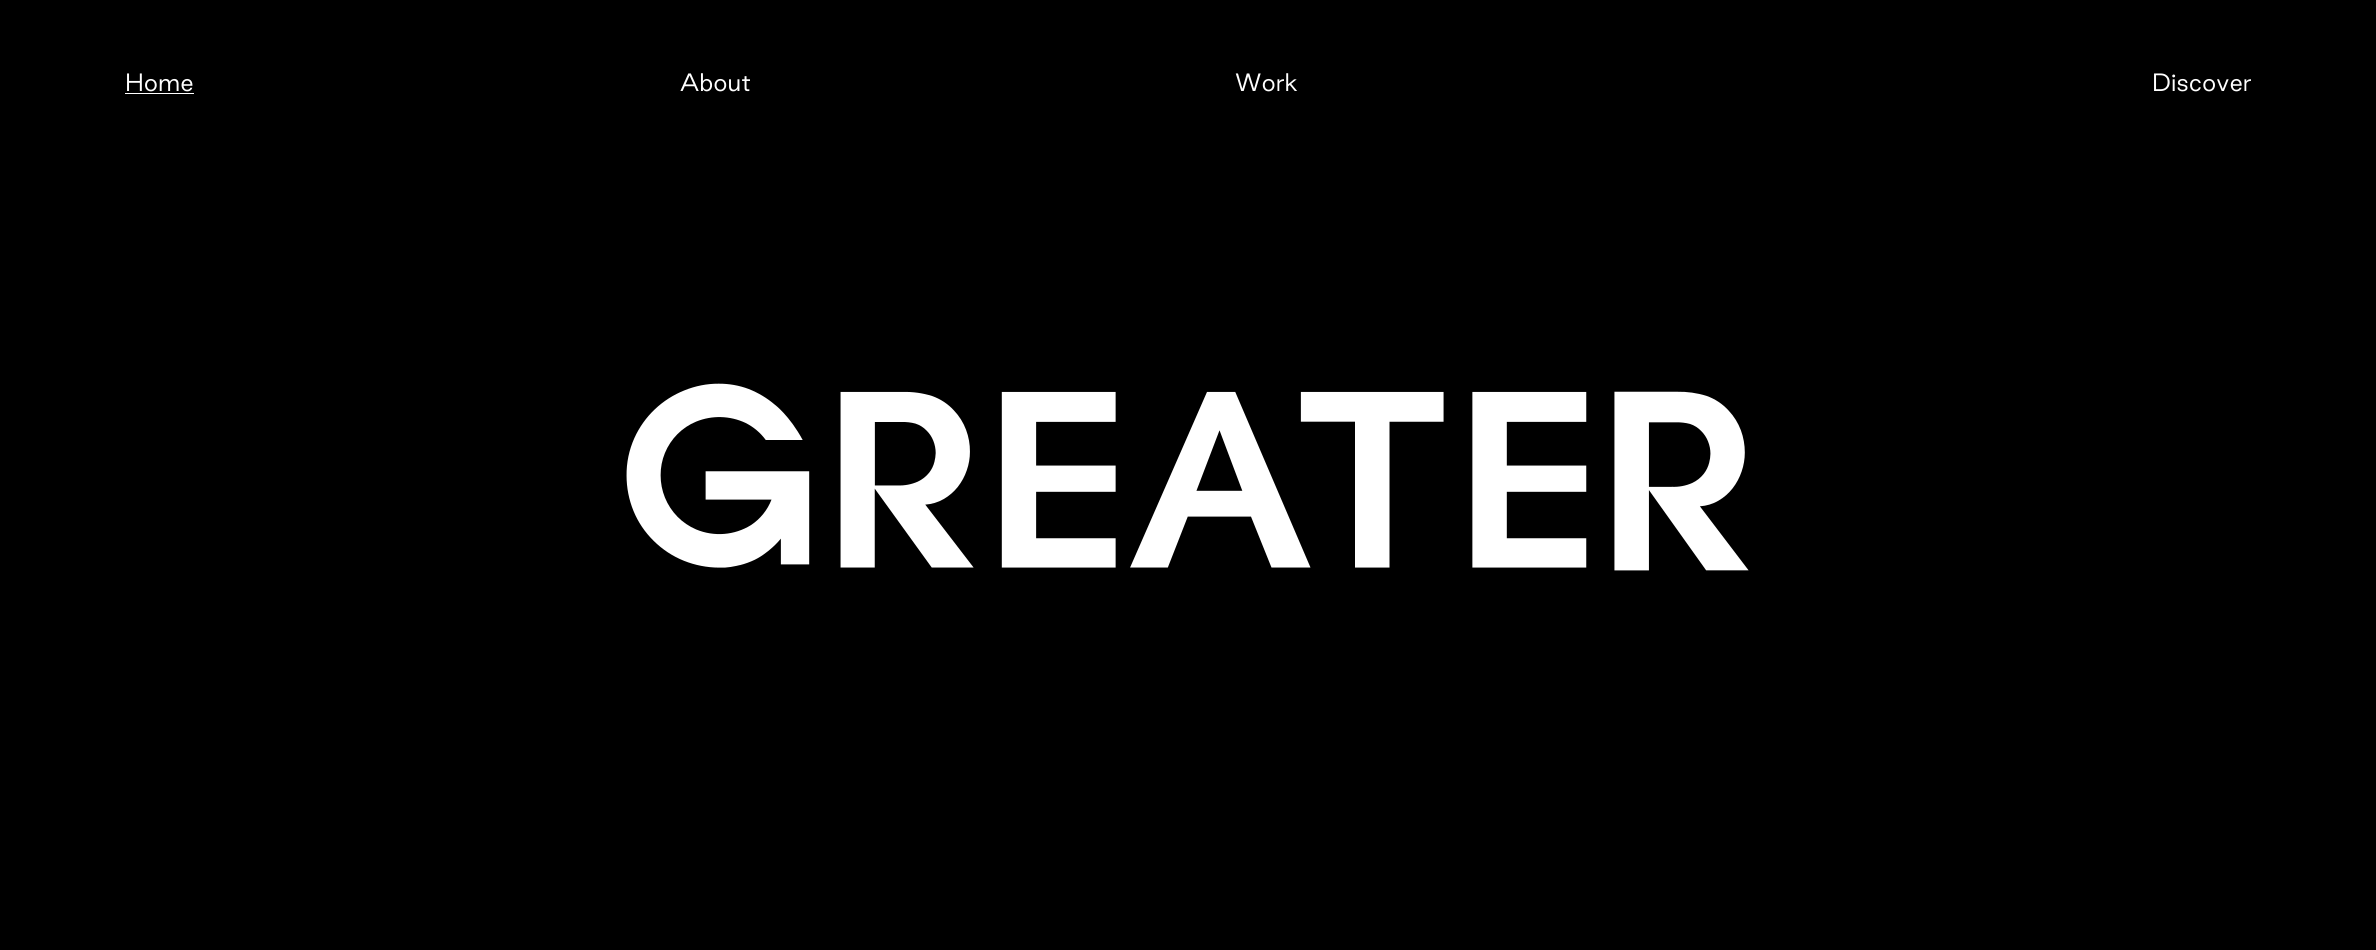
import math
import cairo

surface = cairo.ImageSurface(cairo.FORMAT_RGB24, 2376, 950)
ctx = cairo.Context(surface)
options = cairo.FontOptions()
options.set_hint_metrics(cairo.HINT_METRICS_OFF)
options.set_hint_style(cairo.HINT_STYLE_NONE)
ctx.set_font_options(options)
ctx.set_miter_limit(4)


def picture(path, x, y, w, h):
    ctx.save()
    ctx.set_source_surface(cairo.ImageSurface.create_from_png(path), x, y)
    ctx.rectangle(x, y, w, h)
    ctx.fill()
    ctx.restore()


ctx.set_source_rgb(0, 0, 0)
ctx.paint()
ctx.select_font_face("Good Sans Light")
ctx.set_font_size(22.5)
ctx.set_source_rgb(1, 1, 1)
ctx.move_to(125, 91)
ctx.show_text("Home")
ctx.rectangle(125, 93, 69, 1)
ctx.fill()
ctx.move_to(680, 91)
ctx.show_text("About")
ctx.move_to(1235, 91)
ctx.show_text("Work")
ctx.move_to(2152, 91)
ctx.show_text("Discover")
picture("img1.png", 626, 383, 1123, 188)
surface.write_to_png("page.png")
